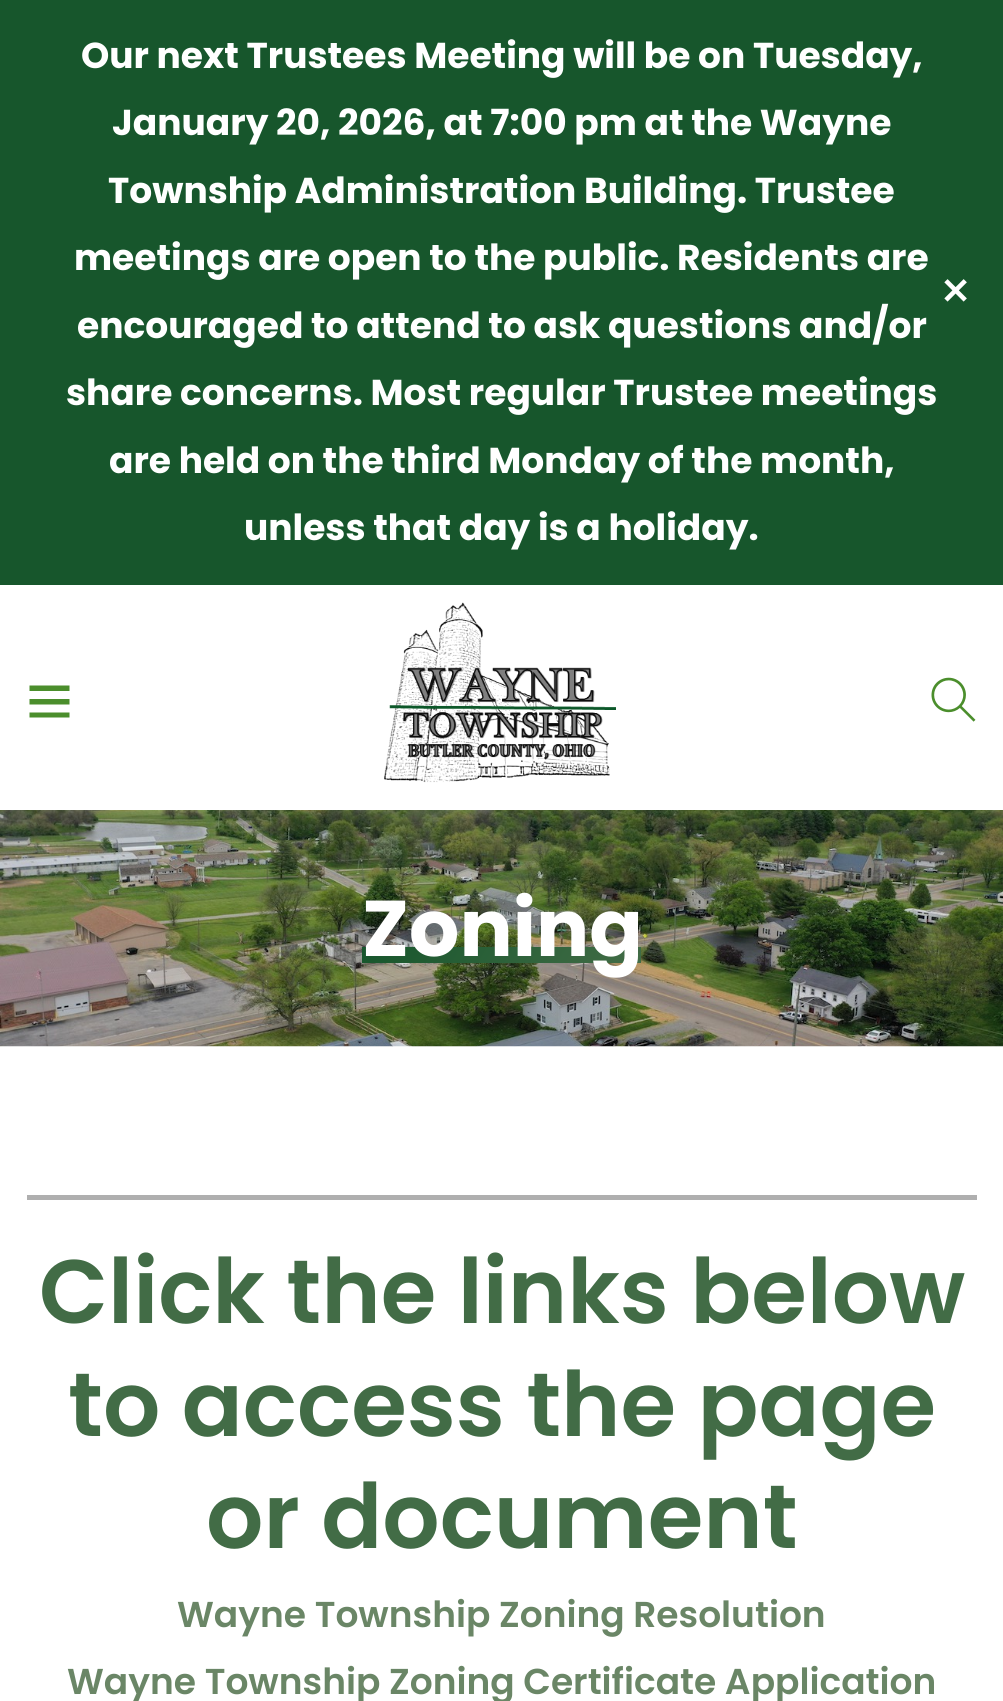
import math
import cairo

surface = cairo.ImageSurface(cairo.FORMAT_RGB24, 1003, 1701)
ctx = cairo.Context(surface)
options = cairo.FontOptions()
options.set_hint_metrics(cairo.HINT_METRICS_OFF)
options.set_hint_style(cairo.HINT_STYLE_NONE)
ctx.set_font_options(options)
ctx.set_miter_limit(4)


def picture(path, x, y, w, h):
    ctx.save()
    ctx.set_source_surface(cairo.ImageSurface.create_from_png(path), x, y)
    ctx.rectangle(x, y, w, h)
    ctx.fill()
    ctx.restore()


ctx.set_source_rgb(1, 1, 1)
ctx.paint()
ctx.set_source_rgb(0.09, 0.337, 0.173)
ctx.rectangle(0, 0, 1003, 585)
ctx.fill()
ctx.select_font_face("Poppins", cairo.FONT_SLANT_NORMAL, cairo.FONT_WEIGHT_BOLD)
ctx.set_font_size(36)
ctx.set_source_rgb(1, 1, 1)
ctx.move_to(81, 68)
ctx.show_text("Our next Trustees Meeting will be on Tuesday,")
ctx.move_to(112, 135)
ctx.show_text("January 20, 2026, at 7:00 pm at the Wayne")
ctx.move_to(108, 203)
ctx.show_text("Township Administration Building. Trustee")
ctx.move_to(74, 270)
ctx.show_text("meetings are open to the public. Residents are")
ctx.move_to(77, 338)
ctx.show_text("encouraged to attend to ask questions and/or")
ctx.move_to(66, 405)
ctx.show_text("share concerns. Most regular Trustee meetings")
ctx.move_to(109, 473)
ctx.show_text("are held on the third Monday of the month,")
ctx.move_to(244, 540)
ctx.show_text("unless that day is a holiday.")
ctx.select_font_face("DejaVu Sans", cairo.FONT_SLANT_NORMAL, cairo.FONT_WEIGHT_BOLD)
ctx.move_to(940, 304)
ctx.show_text("✕")
ctx.set_source_rgb(0.294, 0.557, 0.173)
ctx.new_path()
ctx.move_to(69.5, 685.5)
ctx.line_to(69.5, 691)
ctx.line_to(29.5, 691)
ctx.line_to(29.5, 685.5)
ctx.close_path()
ctx.move_to(29.5, 704.5)
ctx.line_to(69.5, 704.5)
ctx.line_to(69.5, 699)
ctx.line_to(29.5, 699)
ctx.close_path()
ctx.move_to(29.5, 717.5)
ctx.line_to(69.5, 717.5)
ctx.line_to(69.5, 712.5)
ctx.line_to(29.5, 712.5)
ctx.close_path()
ctx.fill()
picture("img1.png", 384, 602, 232, 181)
picture("img2.png", 931, 677, 45, 45)
picture("img3.png", 0, 810, 1003, 237)
gradient = cairo.LinearGradient(394, 893, 610, 1018)
gradient.add_color_stop_rgba(0, 0.09, 0.337, 0.173, 1)
gradient.add_color_stop_rgba(1, 0.259, 0.424, 0.275, 1)
ctx.set_source(gradient)
ctx.rectangle(362, 947, 279, 16)
ctx.fill()
ctx.select_font_face("Poppins", cairo.FONT_SLANT_NORMAL, cairo.FONT_WEIGHT_BOLD)
ctx.set_font_size(79)
ctx.set_source_rgb(1, 1, 1)
ctx.move_to(362, 956)
ctx.show_text("Zoning")
ctx.set_source_rgb(0.686, 0.686, 0.686)
ctx.rectangle(27, 1195, 950, 5)
ctx.fill()
ctx.select_font_face("Poppins SemiBold")
ctx.set_font_size(90)
ctx.set_source_rgb(0.259, 0.424, 0.275)
ctx.move_to(39, 1323)
ctx.show_text("Click the links below")
ctx.move_to(68, 1436)
ctx.show_text("to access the page")
ctx.move_to(206, 1548)
ctx.show_text("or document")
ctx.set_font_size(36)
ctx.set_source_rgb(0.416, 0.525, 0.4)
ctx.move_to(177, 1627)
ctx.show_text("Wayne Township Zoning Resolution")
ctx.move_to(67, 1694)
ctx.show_text("Wayne Township Zoning Certificate Application")
surface.write_to_png("page.png")
